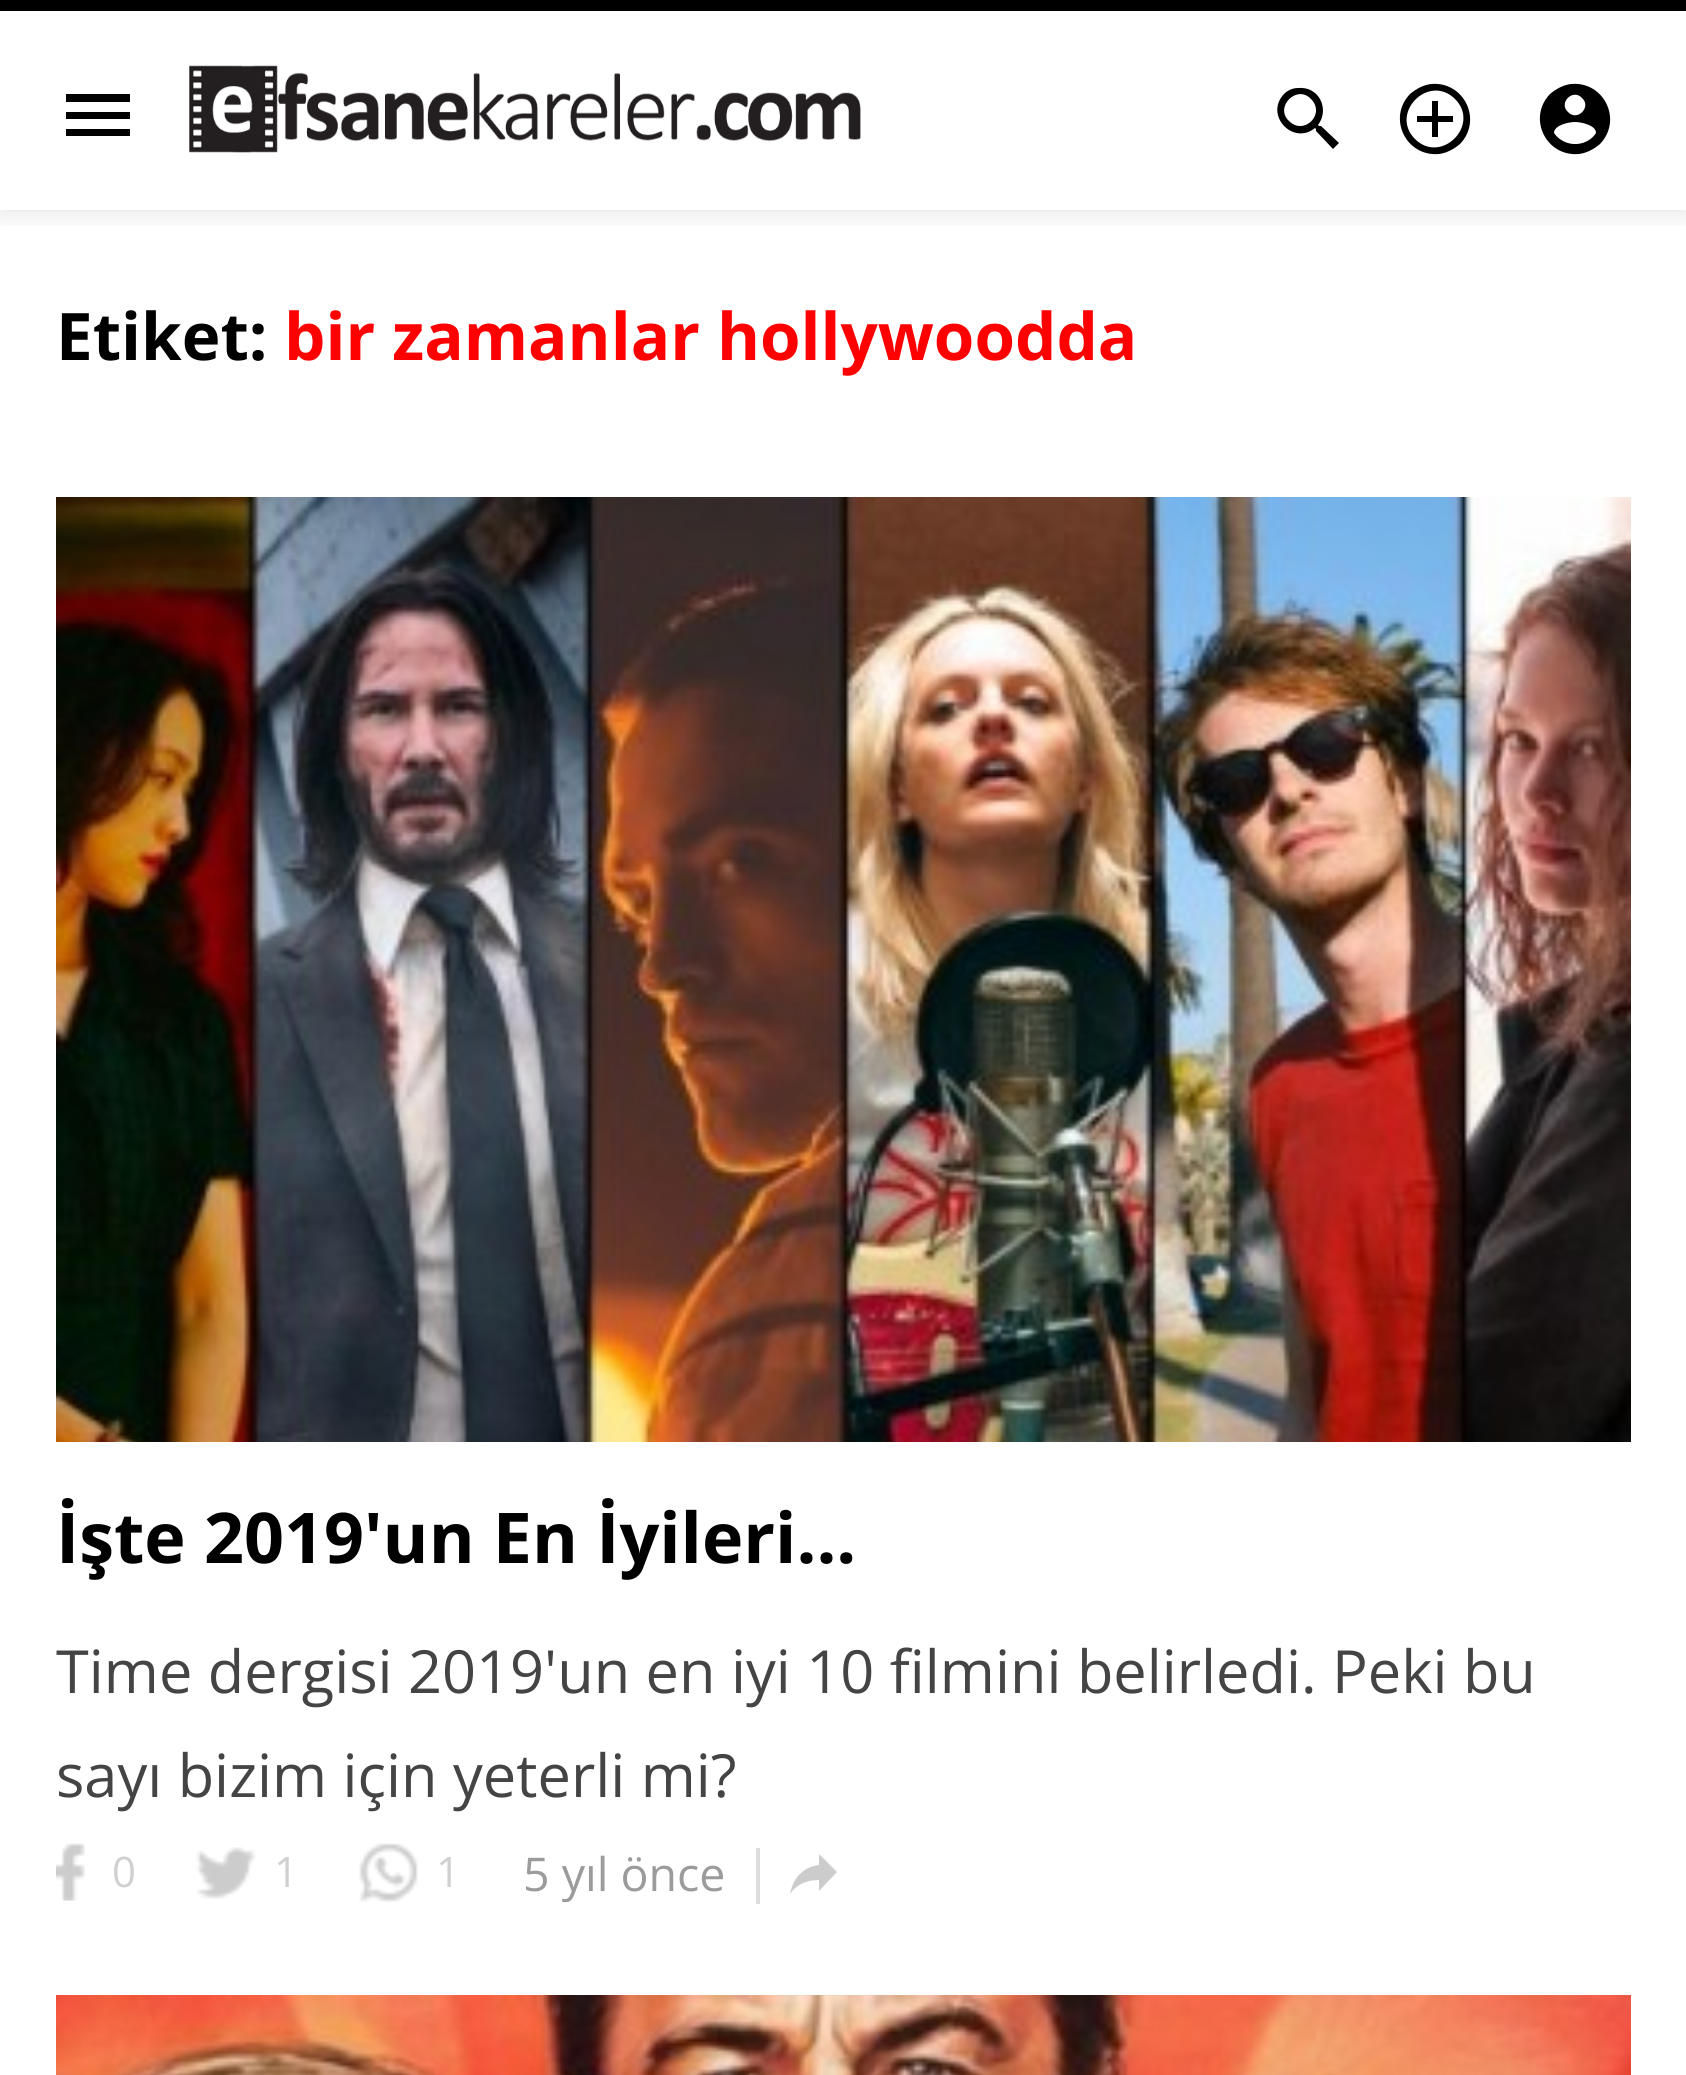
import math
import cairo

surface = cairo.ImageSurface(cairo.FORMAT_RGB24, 1686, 2075)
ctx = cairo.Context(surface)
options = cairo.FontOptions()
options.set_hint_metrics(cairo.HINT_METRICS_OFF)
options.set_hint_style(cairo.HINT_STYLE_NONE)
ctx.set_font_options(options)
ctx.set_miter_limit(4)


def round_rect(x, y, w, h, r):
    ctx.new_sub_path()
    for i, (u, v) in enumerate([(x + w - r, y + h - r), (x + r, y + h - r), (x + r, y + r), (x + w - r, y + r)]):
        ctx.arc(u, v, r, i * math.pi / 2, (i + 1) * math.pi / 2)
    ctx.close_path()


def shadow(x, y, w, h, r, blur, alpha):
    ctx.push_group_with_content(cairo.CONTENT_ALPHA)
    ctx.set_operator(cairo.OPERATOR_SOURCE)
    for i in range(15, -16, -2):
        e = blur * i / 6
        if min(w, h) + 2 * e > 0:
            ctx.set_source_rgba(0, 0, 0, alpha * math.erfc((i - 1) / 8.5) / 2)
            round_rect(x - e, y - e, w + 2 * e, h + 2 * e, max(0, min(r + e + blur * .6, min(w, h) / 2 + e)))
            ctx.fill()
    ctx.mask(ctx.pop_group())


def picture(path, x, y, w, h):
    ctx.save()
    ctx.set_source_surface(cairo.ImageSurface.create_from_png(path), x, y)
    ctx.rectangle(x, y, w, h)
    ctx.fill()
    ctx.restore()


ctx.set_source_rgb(1, 1, 1)
ctx.paint()
ctx.save()
ctx.rectangle(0, 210, 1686, 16)
ctx.clip()
ctx.set_source_rgb(0, 0, 0)
shadow(0, 4, 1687, 210, 0, 14, 0.1)
ctx.restore()
ctx.set_source_rgb(0, 0, 0)
ctx.rectangle(0, 0, 1686, 11)
ctx.fill()
ctx.new_path()
ctx.move_to(66, 94)
ctx.line_to(130, 94)
ctx.line_to(130, 102)
ctx.line_to(66, 102)
ctx.close_path()
ctx.move_to(66, 119)
ctx.line_to(66, 112)
ctx.line_to(130, 112)
ctx.line_to(130, 119)
ctx.close_path()
ctx.move_to(66, 136)
ctx.line_to(66, 129)
ctx.line_to(130, 129)
ctx.line_to(130, 136)
ctx.close_path()
ctx.fill()
picture("img1.png", 189, 65, 672, 88)
ctx.new_path()
ctx.move_to(1289, 121)
ctx.curve_to(1304, 136, 1326, 114, 1311, 99)
ctx.curve_to(1297, 84, 1274, 107, 1289, 121)
ctx.close_path()
ctx.move_to(1321, 126)
ctx.line_to(1339, 143)
ctx.line_to(1333, 149)
ctx.line_to(1316, 131)
ctx.line_to(1316, 129)
ctx.line_to(1315, 128)
ctx.curve_to(1293, 146, 1264, 115, 1284, 94)
ctx.curve_to(1288, 90, 1293, 88, 1298, 88)
ctx.curve_to(1319, 86, 1330, 109, 1318, 125)
ctx.line_to(1319, 126)
ctx.close_path()
ctx.fill()
ctx.new_path()
ctx.move_to(1415, 139)
ctx.curve_to(1441, 165, 1481, 125, 1455, 99)
ctx.curve_to(1429, 73, 1389, 113, 1415, 139)
ctx.close_path()
ctx.move_to(1410, 94)
ctx.curve_to(1416, 89, 1423, 85, 1431, 84)
ctx.curve_to(1464, 81, 1483, 120, 1460, 144)
ctx.curve_to(1454, 149, 1447, 153, 1439, 154)
ctx.curve_to(1406, 157, 1387, 118, 1410, 94)
ctx.close_path()
ctx.move_to(1438, 101)
ctx.line_to(1438, 116)
ctx.line_to(1453, 116)
ctx.line_to(1453, 122)
ctx.line_to(1438, 122)
ctx.line_to(1438, 137)
ctx.line_to(1432, 137)
ctx.line_to(1432, 122)
ctx.line_to(1417, 122)
ctx.line_to(1417, 116)
ctx.line_to(1432, 116)
ctx.line_to(1432, 101)
ctx.close_path()
ctx.fill()
ctx.new_path()
ctx.move_to(1563, 141)
ctx.curve_to(1574, 147, 1589, 144, 1596, 133)
ctx.curve_to(1596, 125, 1581, 122, 1575, 122)
ctx.curve_to(1569, 122, 1554, 125, 1554, 133)
ctx.curve_to(1556, 136, 1559, 139, 1563, 141)
ctx.close_path()
ctx.move_to(1582, 98)
ctx.curve_to(1573, 88, 1558, 103, 1568, 112)
ctx.curve_to(1577, 122, 1592, 107, 1582, 98)
ctx.close_path()
ctx.move_to(1550, 94)
ctx.curve_to(1556, 89, 1563, 85, 1571, 84)
ctx.curve_to(1604, 81, 1623, 120, 1600, 144)
ctx.curve_to(1594, 149, 1587, 153, 1579, 154)
ctx.curve_to(1546, 157, 1527, 118, 1550, 94)
ctx.close_path()
ctx.fill()
ctx.select_font_face("Open Sans", cairo.FONT_SLANT_NORMAL, cairo.FONT_WEIGHT_BOLD)
ctx.set_font_size(65.5)
ctx.move_to(56, 360)
ctx.show_text("Etiket:")
ctx.set_source_rgb(1, 0, 0)
ctx.move_to(284, 360)
ctx.show_text("bir zamanlar hollywoodda")
picture("img2.png", 56, 497, 1575, 945)
ctx.set_font_size(70)
ctx.set_source_rgb(0, 0, 0)
ctx.move_to(56, 1563)
ctx.show_text("İşte 2019'un En İyileri...")
ctx.select_font_face("Open Sans")
ctx.set_font_size(59.5)
ctx.set_source_rgb(0.267, 0.267, 0.267)
ctx.move_to(56, 1693)
ctx.show_text("Time dergisi 2019'un en iyi 10 filmini belirledi. Peki bu")
ctx.move_to(56, 1797)
ctx.show_text("sayı bizim için yeterli mi?")
picture("img3.png", 56, 1843, 29, 58)
ctx.set_font_size(42)
ctx.set_source_rgb(0.816, 0.816, 0.816)
ctx.move_to(112, 1887)
ctx.show_text("0")
picture("img4.png", 196, 1847, 60, 52)
ctx.move_to(274, 1887)
ctx.show_text("1")
picture("img5.png", 359, 1843, 59, 59)
ctx.move_to(436, 1887)
ctx.show_text("1")
ctx.set_font_size(46.5)
ctx.set_source_rgb(0.608, 0.608, 0.608)
ctx.move_to(523, 1891)
ctx.show_text("5 yıl önce")
ctx.set_source_rgb(0.867, 0.867, 0.867)
ctx.rectangle(756, 1848, 4, 56)
ctx.fill()
ctx.set_source_rgb(0.8, 0.8, 0.8)
ctx.new_path()
ctx.move_to(819, 1865)
ctx.curve_to(803, 1867, 793, 1878, 790, 1894)
ctx.curve_to(796, 1885, 806, 1880, 819, 1880)
ctx.line_to(819, 1891)
ctx.line_to(837, 1872)
ctx.line_to(819, 1854)
ctx.close_path()
ctx.fill()
picture("img6.png", 56, 1995, 1575, 80)
surface.write_to_png("page.png")
